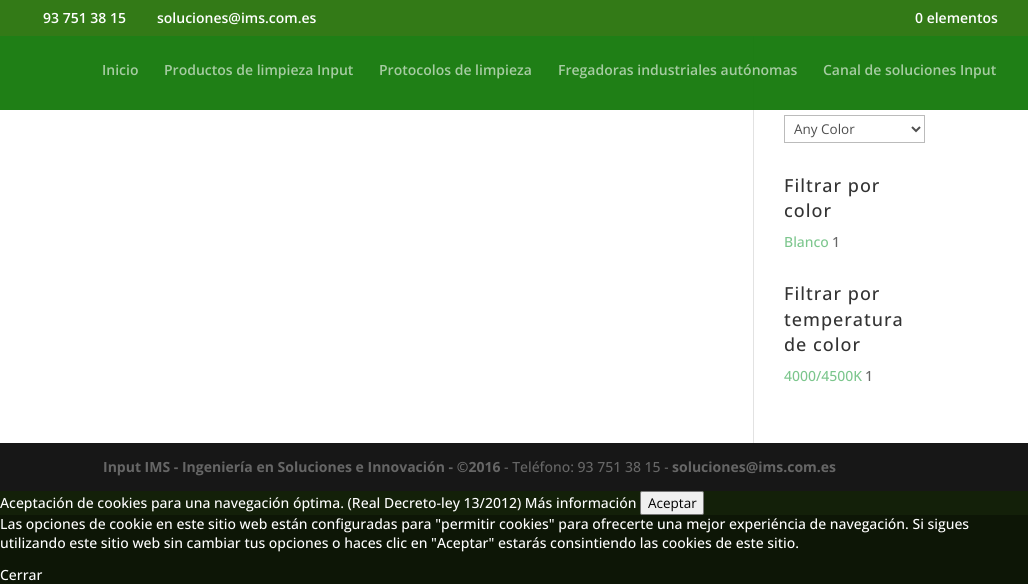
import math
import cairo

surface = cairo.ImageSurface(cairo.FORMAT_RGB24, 1028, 584)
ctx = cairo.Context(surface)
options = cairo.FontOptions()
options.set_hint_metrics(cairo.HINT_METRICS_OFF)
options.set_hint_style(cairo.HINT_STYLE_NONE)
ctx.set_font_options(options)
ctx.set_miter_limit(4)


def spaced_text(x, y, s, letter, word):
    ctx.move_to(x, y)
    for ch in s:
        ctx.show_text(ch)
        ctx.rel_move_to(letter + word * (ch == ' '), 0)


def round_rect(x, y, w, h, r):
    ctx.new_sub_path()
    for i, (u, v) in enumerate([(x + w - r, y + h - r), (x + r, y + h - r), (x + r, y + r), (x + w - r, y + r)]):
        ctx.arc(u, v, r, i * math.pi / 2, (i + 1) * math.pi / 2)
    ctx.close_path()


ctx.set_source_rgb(1, 1, 1)
ctx.paint()
ctx.set_source_rgb(0.2, 0.478, 0.09)
ctx.rectangle(0, 0, 1028, 36)
ctx.fill()
ctx.select_font_face("Open Sans SemiBold")
ctx.set_font_size(14)
ctx.set_source_rgb(1, 1, 1)
ctx.move_to(43, 23)
ctx.show_text("93 751 38 15")
ctx.move_to(157, 23)
ctx.show_text("soluciones@ims.com.es")
ctx.move_to(915, 23)
ctx.show_text("0 elementos")
ctx.set_source_rgb(0.886, 0.886, 0.886)
ctx.rectangle(753, 36, 1, 407)
ctx.fill()
ctx.set_source_rgba(0.086, 0.478, 0.051, 0.96)
ctx.rectangle(0, 36, 1028, 74)
ctx.fill()
ctx.set_source_rgb(0.651, 0.8, 0.635)
ctx.move_to(102, 75)
ctx.show_text("Inicio")
ctx.move_to(164, 75)
ctx.show_text("Productos de limpieza Input")
ctx.move_to(379, 75)
ctx.show_text("Protocolos de limpieza")
ctx.move_to(558, 75)
ctx.show_text("Fregadoras industriales autónomas")
ctx.move_to(823, 75)
ctx.show_text("Canal de soluciones Input")
ctx.rectangle(784.5, 115.5, 140, 27)
ctx.set_source_rgb(0.733, 0.733, 0.733)
ctx.set_line_width(1)
ctx.stroke()
ctx.new_path()
ctx.move_to(912, 127)
ctx.line_to(916, 131)
ctx.line_to(920, 127)
ctx.set_source_rgb(0.306, 0.306, 0.306)
ctx.set_line_width(2)
ctx.stroke()
ctx.select_font_face("Open Sans")
ctx.set_font_size(13.5)
ctx.move_to(794, 134)
ctx.show_text("Any Color")
ctx.select_font_face("Open Sans Medium")
ctx.set_font_size(18)
ctx.set_source_rgb(0.2, 0.2, 0.2)
spaced_text(784, 192, "Filtrar por", 1, 0)
spaced_text(784, 217, "color", 1, 0)
ctx.set_font_size(14)
ctx.set_source_rgb(0.486, 0.776, 0.553)
ctx.move_to(784, 247)
ctx.show_text("Blanco")
ctx.set_source_rgb(0.4, 0.4, 0.4)
ctx.move_to(832, 247)
ctx.show_text("1")
ctx.set_font_size(18)
ctx.set_source_rgb(0.2, 0.2, 0.2)
spaced_text(784, 300, "Filtrar por", 1, 0)
spaced_text(784, 326, "temperatura", 1, 0)
spaced_text(784, 351, "de color", 1, 0)
ctx.set_font_size(14)
ctx.set_source_rgb(0.486, 0.776, 0.553)
ctx.move_to(784, 381)
ctx.show_text("4000/4500K")
ctx.set_source_rgb(0.4, 0.4, 0.4)
ctx.move_to(865, 381)
ctx.show_text("1")
ctx.set_source_rgb(0.09, 0.09, 0.09)
ctx.rectangle(0, 443, 1028, 48)
ctx.fill()
ctx.select_font_face("Open Sans", cairo.FONT_SLANT_NORMAL, cairo.FONT_WEIGHT_BOLD)
ctx.set_source_rgb(0.4, 0.4, 0.4)
ctx.move_to(103, 472)
ctx.show_text("Input IMS - Ingeniería en Soluciones e Innovación - ©2016")
ctx.select_font_face("Open Sans Medium")
ctx.move_to(504, 472)
ctx.show_text("- Teléfono: 93 751 38 15 -")
ctx.select_font_face("Open Sans", cairo.FONT_SLANT_NORMAL, cairo.FONT_WEIGHT_BOLD)
ctx.move_to(672, 472)
ctx.show_text("soluciones@ims.com.es")
ctx.set_source_rgb(0.075, 0.125, 0.039)
ctx.rectangle(0, 491, 1028, 24)
ctx.fill()
ctx.select_font_face("Open Sans Medium")
ctx.set_source_rgb(1, 1, 1)
ctx.move_to(0, 508)
ctx.show_text("Aceptación de cookies para una navegación óptima. (Real Decreto-ley 13/2012) Más información")
ctx.set_source_rgb(0.937, 0.937, 0.937)
round_rect(640.5, 491.5, 63, 23, 1.5)
ctx.fill_preserve()
ctx.set_source_rgb(0.463, 0.463, 0.463)
ctx.set_line_width(1)
ctx.stroke()
ctx.select_font_face("Open Sans")
ctx.set_font_size(13.5)
ctx.set_source_rgb(0, 0, 0)
ctx.move_to(648, 508)
ctx.show_text("Aceptar")
ctx.set_source_rgb(0.051, 0.086, 0.027)
ctx.rectangle(0, 515, 1028, 69)
ctx.fill()
ctx.select_font_face("Open Sans Medium")
ctx.set_font_size(14)
ctx.set_source_rgb(1, 1, 1)
ctx.move_to(0, 529)
ctx.show_text("Las opciones de cookie en este sitio web están configuradas para \"permitir cookies\" para ofrecerte una mejor experiéncia de navegación. Si sigues")
ctx.move_to(0, 548)
ctx.show_text("utilizando este sitio web sin cambiar tus opciones o haces clic en \"Aceptar\" estarás consintiendo las cookies de este sitio.")
ctx.move_to(0, 580)
ctx.show_text("Cerrar")
surface.write_to_png("page.png")
